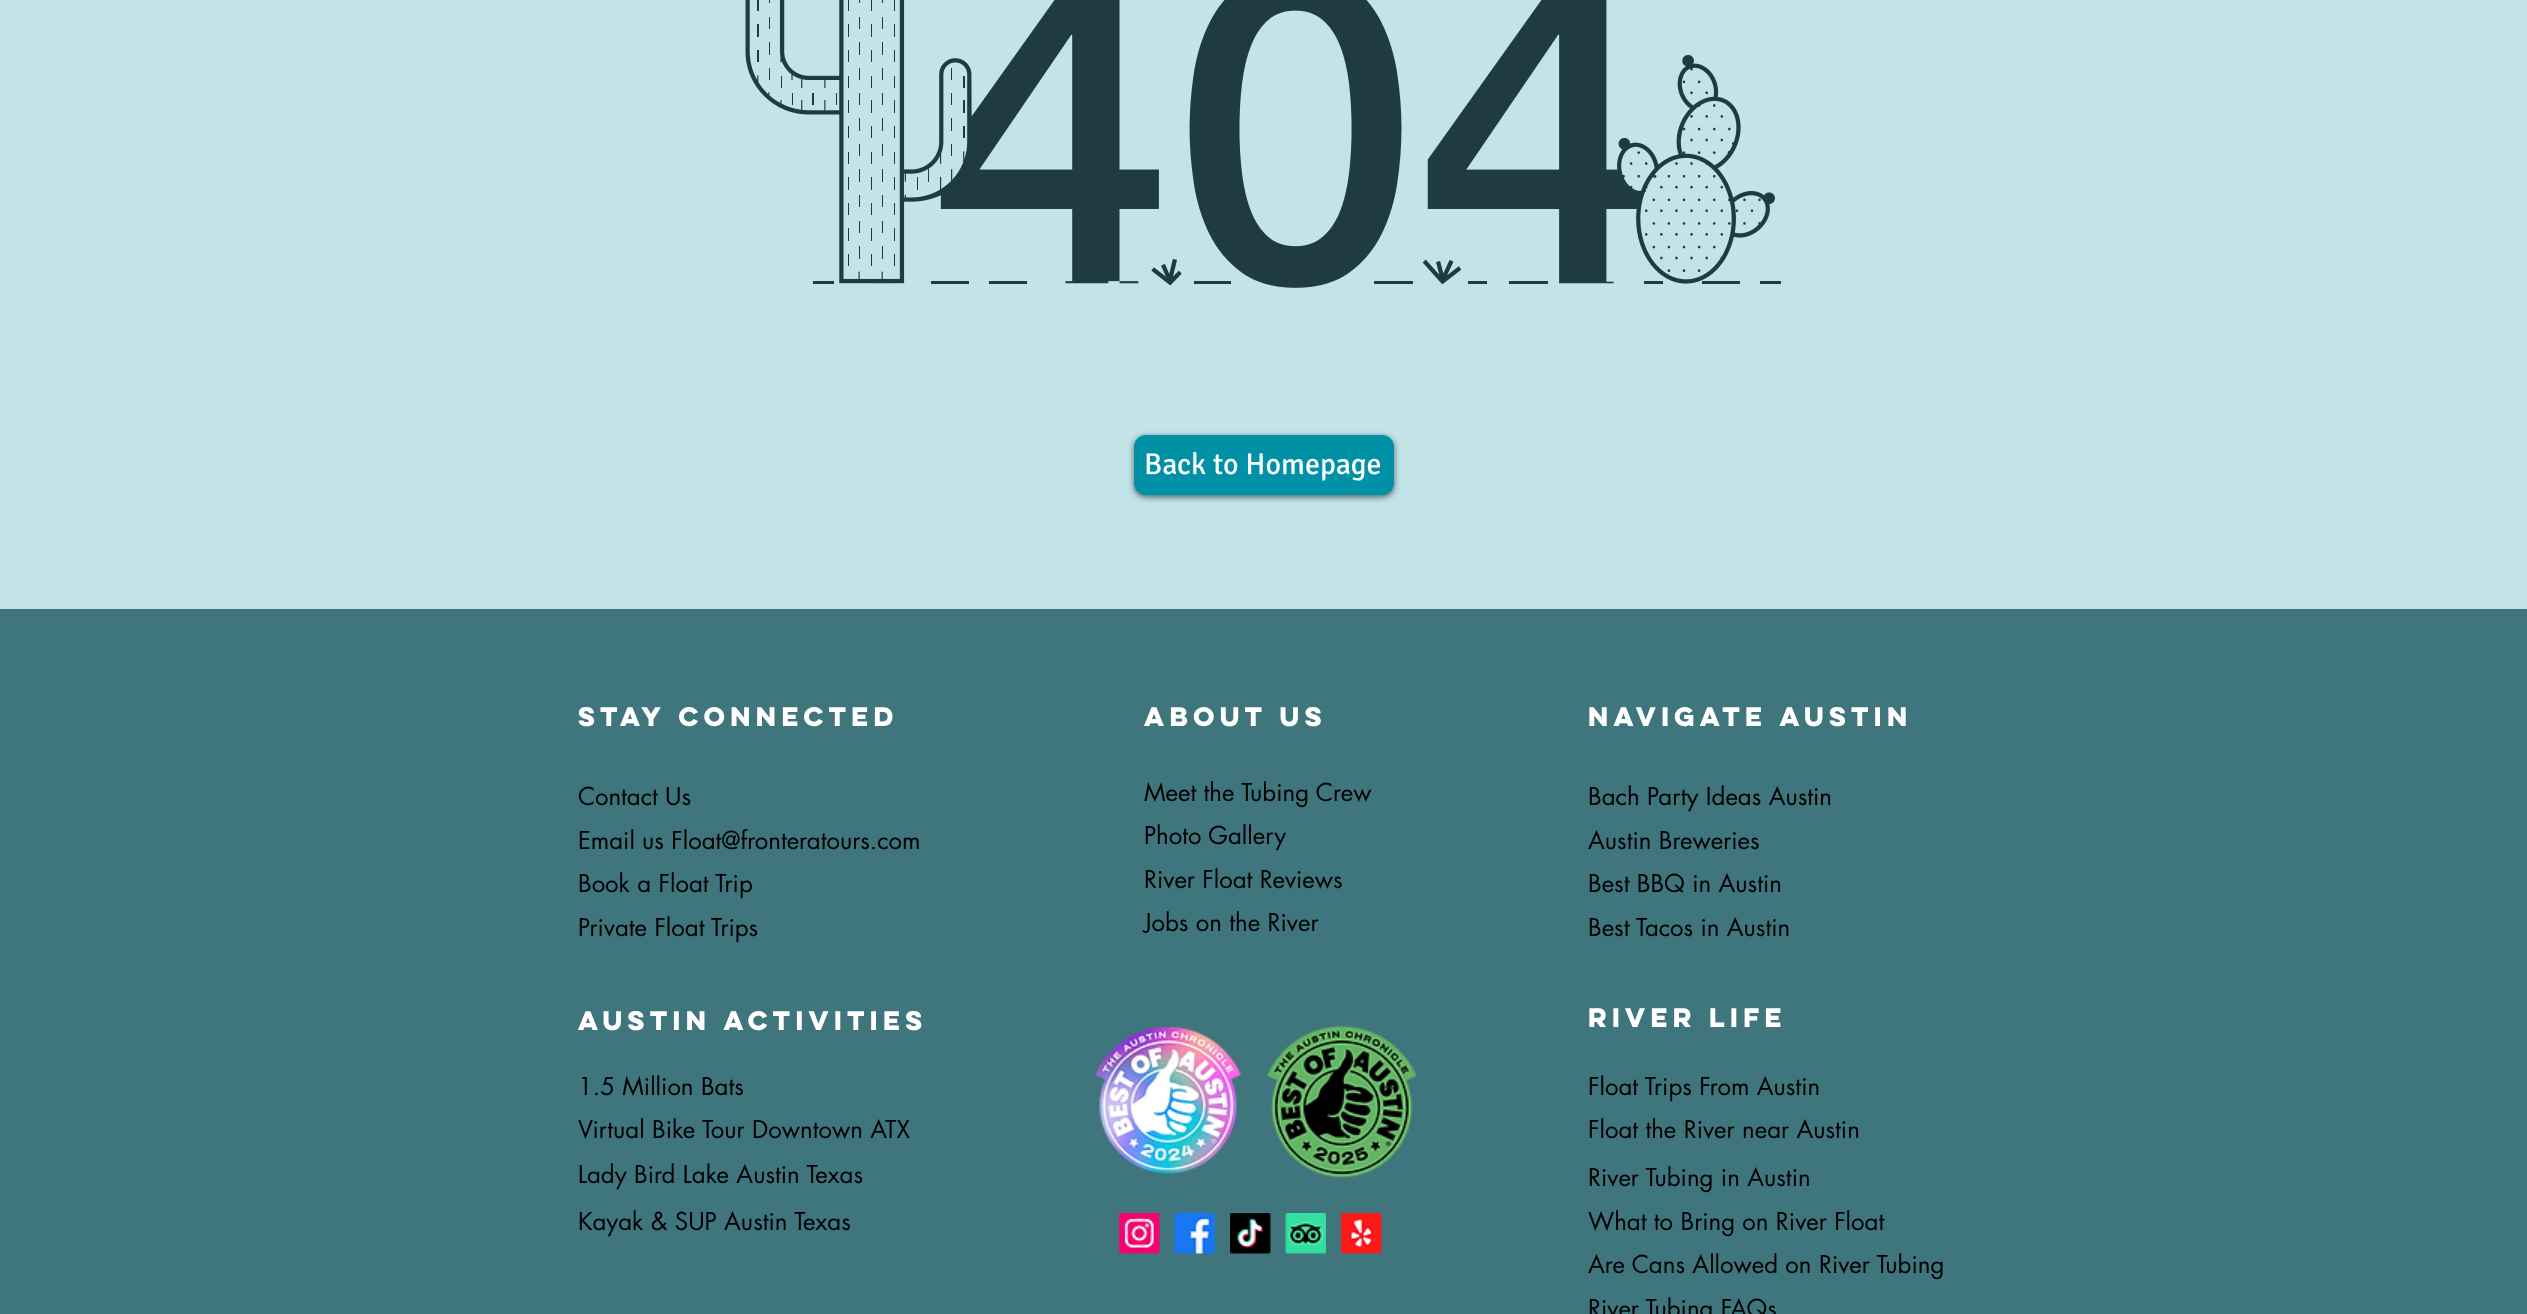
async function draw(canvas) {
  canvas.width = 2527;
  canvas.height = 1314;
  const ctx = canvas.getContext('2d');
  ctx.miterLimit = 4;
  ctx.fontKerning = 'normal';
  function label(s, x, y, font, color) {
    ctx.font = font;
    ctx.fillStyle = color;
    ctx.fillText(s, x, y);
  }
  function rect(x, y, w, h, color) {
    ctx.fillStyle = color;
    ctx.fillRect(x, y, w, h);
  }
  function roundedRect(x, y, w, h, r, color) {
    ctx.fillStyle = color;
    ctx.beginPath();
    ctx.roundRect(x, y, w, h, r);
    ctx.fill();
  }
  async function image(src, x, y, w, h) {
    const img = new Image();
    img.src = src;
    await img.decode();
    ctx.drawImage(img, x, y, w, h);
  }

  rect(0, 0, 2527, 1314, '#c2e4e9');
  await image('assets/img1.png', 745, 0, 1036, 288);
  ctx.fillStyle = '#00000099';
  ctx.filter = 'blur(3px)';
  ctx.beginPath();
  ctx.roundRect(1134, 437, 260, 60, 12);
  ctx.fill();
  ctx.filter = 'none';
  roundedRect(1134, 435, 260, 60, 12, '#0191a6');
  label('Back to Homepage', 1144, 474, '30px Signika', '#fff');
  rect(0, 609, 2527, 705, '#3f757d');
  label('STAY CONNECTED', 578, 726, 'bold 24px "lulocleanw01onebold"', '#fff');
  label('about us', 1144, 726, 'bold 24px "lulocleanw01onebold"', '#fff');
  label('navigate Austin', 1588, 726, 'bold 24px "lulocleanw01onebold"', '#fff');
  label('Contact Us', 578, 805, '24px futura', '#000');
  label('Meet the Tubing Crew', 1144, 801, '24px futura', '#000');
  label('Bach Party Ideas Austin', 1588, 805, '24px futura', '#000');
  label('Email us Float@fronteratours.com', 578, 849, '24px futura', '#000');
  label('Photo Gallery', 1144, 844, '24px futura', '#000');
  label('Austin Breweries', 1588, 849, '24px futura', '#000');
  label('Book a Float Trip', 578, 892, '24px futura', '#000');
  label('River Float Reviews', 1144, 888, '24px futura', '#000');
  label('Best BBQ in Austin', 1588, 892, '24px futura', '#000');
  label('Private Float Trips', 578, 936, '24px futura', '#000');
  label('Jobs on the River', 1144, 931, '24px futura', '#000');
  label('Best Tacos in Austin', 1588, 936, '24px futura', '#000');
  label('Austin ACTIVITIES', 578, 1030, 'bold 24px "lulocleanw01onebold"', '#fff');
  label('RIVER LIFE', 1588, 1027, 'bold 24px "lulocleanw01onebold"', '#fff');
  label('1.5 Million Bats', 578, 1095, '24px futura', '#000');
  await image('assets/img2.png', 1094, 1025, 147, 150);
  await image('assets/img3.png', 1267, 1025, 150, 153);
  label('Float Trips From Austin', 1588, 1095, '24px futura', '#000');
  label('Virtual Bike Tour Downtown ATX', 578, 1138, '24px futura', '#000');
  label('Float the River near Austin', 1588, 1138, '24px futura', '#000');
  label('Lady Bird Lake Austin Texas', 578, 1183, '24px futura', '#000');
  label('River Tubing in Austin', 1588, 1186, '24px futura', '#000');
  label('Kayak & SUP Austin Texas', 578, 1230, '24px futura', '#000');
  await image('assets/img4.png', 1119, 1213, 41, 41);
  await image('assets/img5.png', 1174, 1213, 41, 41);
  await image('assets/img6.png', 1230, 1213, 41, 41);
  await image('assets/img7.png', 1285, 1213, 41, 41);
  await image('assets/img8.png', 1341, 1213, 41, 41);
  label('What to Bring on River Float', 1588, 1230, '24px futura', '#000');
  label('Are Cans Allowed on River Tubing', 1588, 1273, '24px futura', '#000');
  label('River Tubing FAQs', 1588, 1317, '24px futura', '#000');
}

draw(document.querySelector('canvas'));
